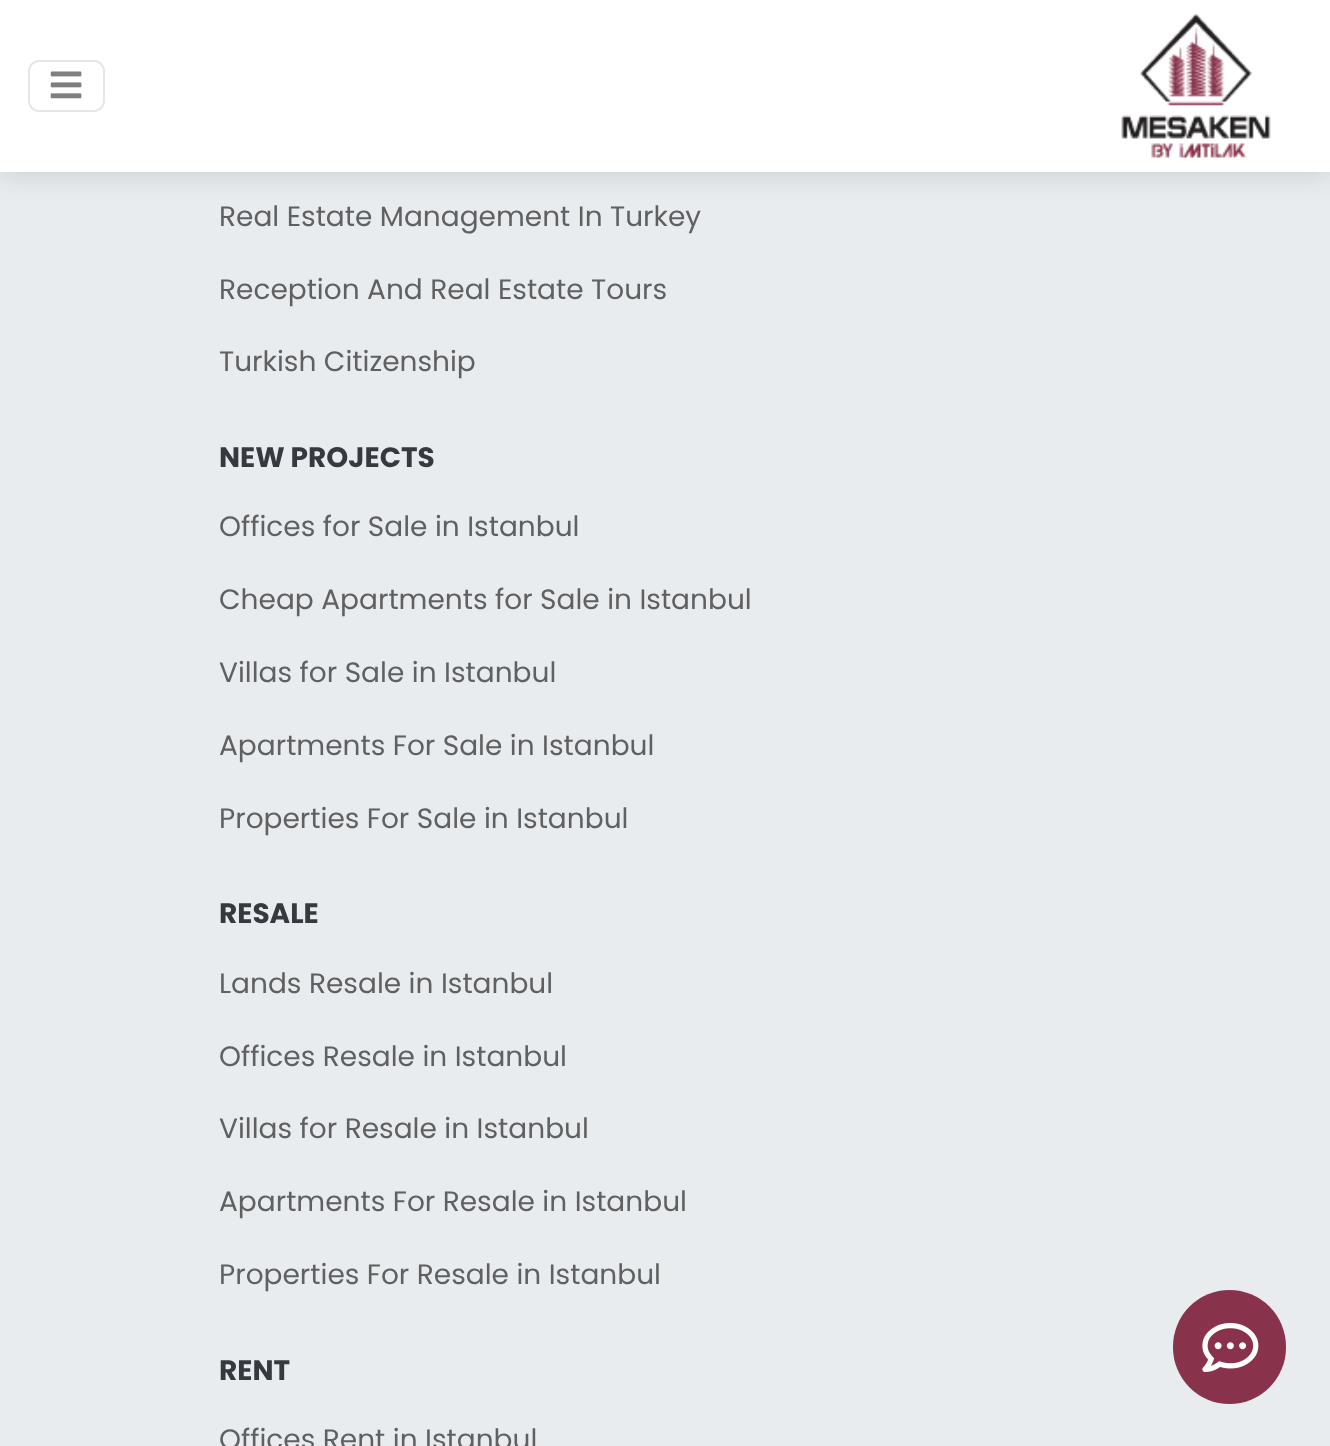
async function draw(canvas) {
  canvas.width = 1330;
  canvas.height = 1446;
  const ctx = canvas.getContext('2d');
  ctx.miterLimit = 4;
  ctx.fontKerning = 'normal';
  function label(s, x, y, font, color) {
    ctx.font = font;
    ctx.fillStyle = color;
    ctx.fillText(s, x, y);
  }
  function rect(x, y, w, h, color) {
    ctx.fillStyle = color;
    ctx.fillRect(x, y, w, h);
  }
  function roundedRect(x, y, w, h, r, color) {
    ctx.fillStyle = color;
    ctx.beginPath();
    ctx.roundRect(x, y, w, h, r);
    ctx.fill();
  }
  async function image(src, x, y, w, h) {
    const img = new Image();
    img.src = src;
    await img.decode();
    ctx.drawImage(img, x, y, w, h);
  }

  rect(0, 0, 1330, 1446, '#e9ecef');
  ctx.fillStyle = '#00000026';
  ctx.filter = 'blur(14px)';
  ctx.beginPath();
  ctx.rect(0, 0, 1330, 172);
  ctx.fill();
  ctx.filter = 'none';
  rect(0, 0, 1330, 172, '#fff');
  ctx.beginPath();
  ctx.roundRect(29, 61, 75, 50, 10);
  ctx.strokeStyle = '#e6e6e6';
  ctx.lineWidth = 2;
  ctx.stroke();
  await image('assets/img1.png', 50, 71, 32, 28);
  await image('assets/img2.png', 1121, 13, 150, 145);
  label('Real Estate Management In Turkey', 219, 226, '28px Poppins', '#5f6061');
  label('Reception And Real Estate Tours', 219, 299, '28px Poppins', '#5f6061');
  label('Turkish Citizenship', 219, 371, '28px Poppins', '#5f6061');
  label('NEW PROJECTS', 219, 467, 'bold 28px Poppins', '#343a40');
  label('Offices for Sale in Istanbul', 219, 536, '28px Poppins', '#5f6061');
  label('Cheap Apartments for Sale in Istanbul', 219, 609, '28px Poppins', '#5f6061');
  label('Villas for Sale in Istanbul', 219, 682, '28px Poppins', '#5f6061');
  label('Apartments For Sale in Istanbul', 219, 755, '28px Poppins', '#5f6061');
  label('Properties For Sale in Istanbul', 219, 828, '28px Poppins', '#5f6061');
  label('RESALE', 219, 923, 'bold 28px Poppins', '#343a40');
  label('Lands Resale in Istanbul', 219, 993, '28px Poppins', '#5f6061');
  label('Offices Resale in Istanbul', 219, 1066, '28px Poppins', '#5f6061');
  label('Villas for Resale in Istanbul', 219, 1138, '28px Poppins', '#5f6061');
  label('Apartments For Resale in Istanbul', 219, 1211, '28px Poppins', '#5f6061');
  label('Properties For Resale in Istanbul', 219, 1284, '28px Poppins', '#5f6061');
  label('RENT', 219, 1380, 'bold 28px Poppins', '#343a40');
  label('Offices Rent in Istanbul', 219, 1449, '28px Poppins', '#5f6061');
  roundedRect(1173, 1290, 113, 114, 56.5, '#88324b');
  await image('assets/img3.png', 1202, 1323, 57, 49);
}

draw(document.querySelector('canvas'));
